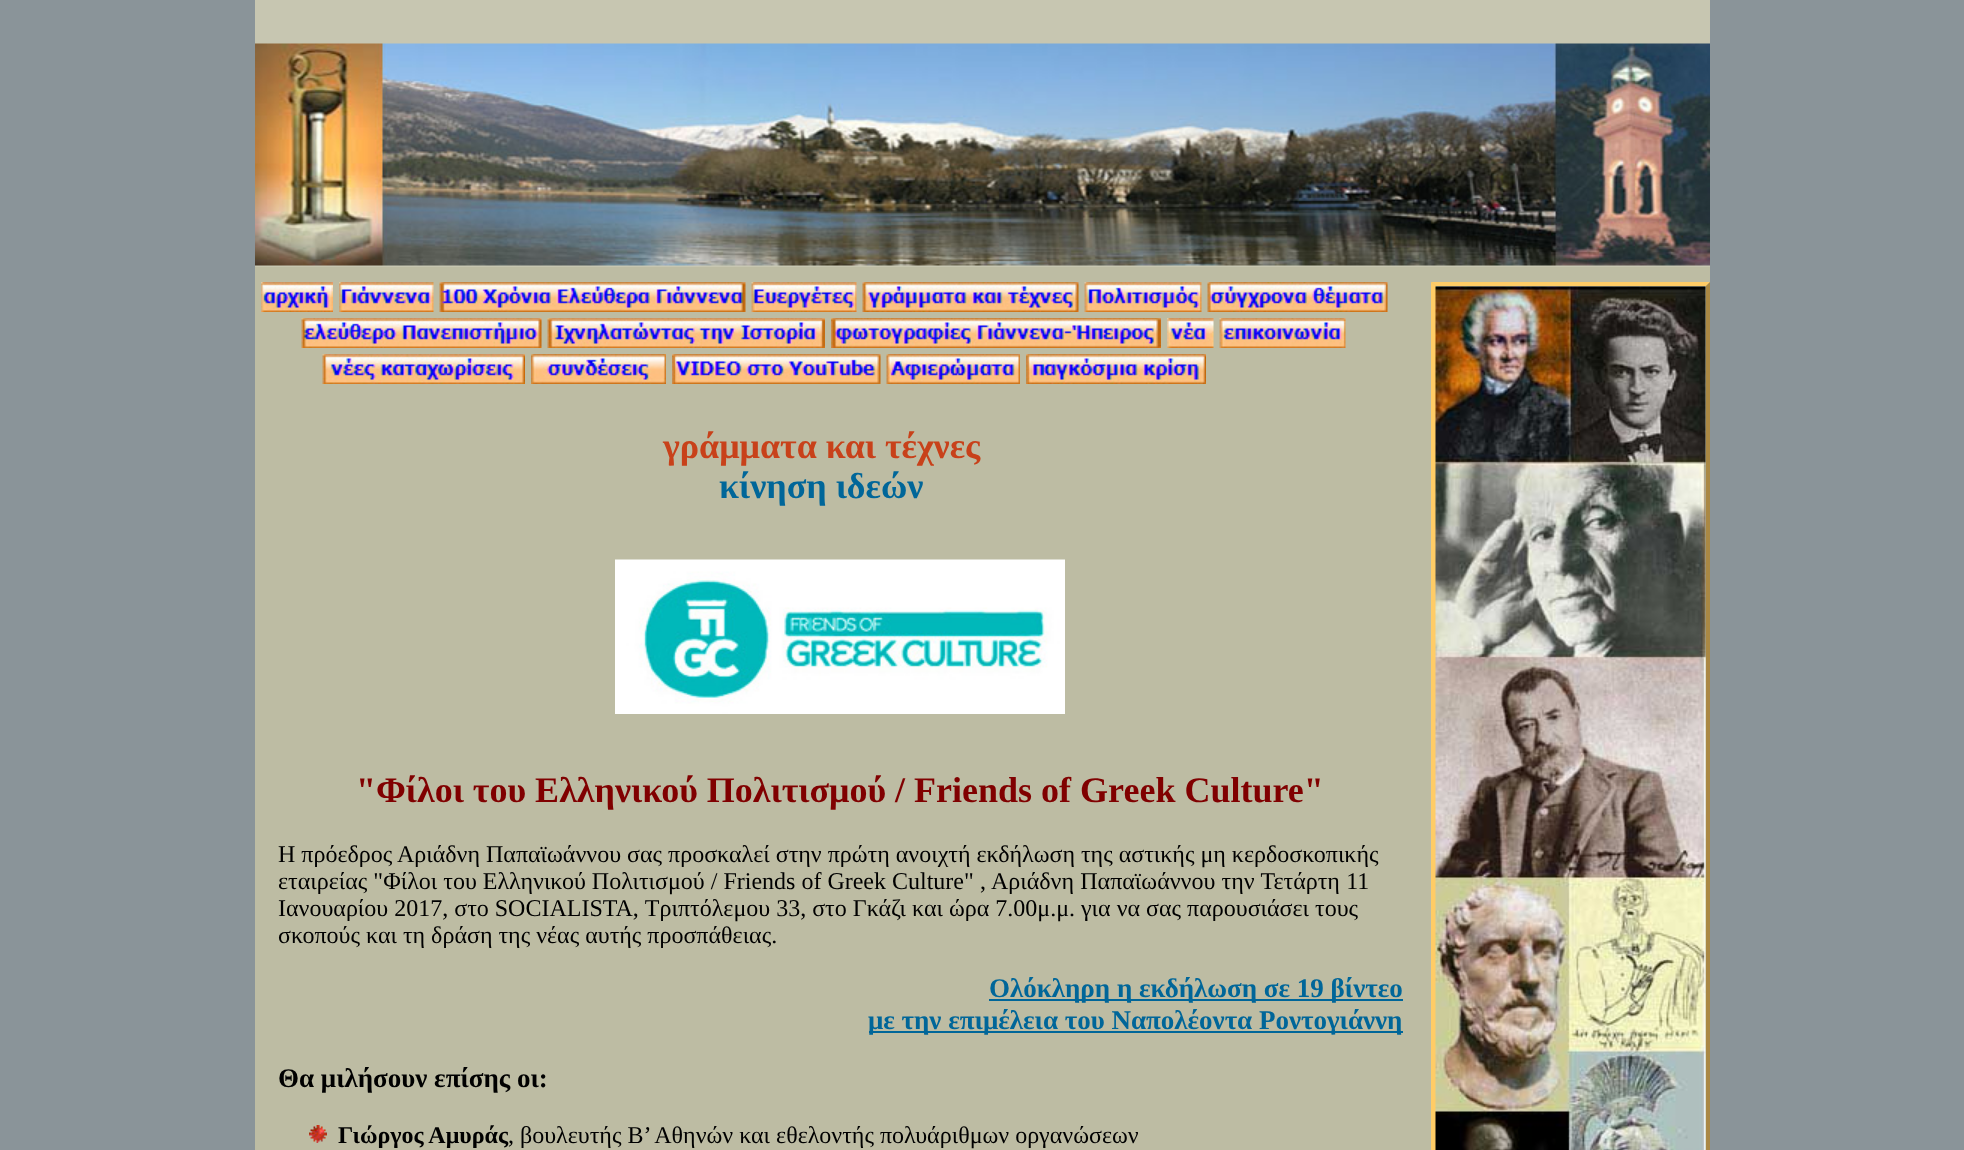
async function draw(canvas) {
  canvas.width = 1964;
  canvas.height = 1150;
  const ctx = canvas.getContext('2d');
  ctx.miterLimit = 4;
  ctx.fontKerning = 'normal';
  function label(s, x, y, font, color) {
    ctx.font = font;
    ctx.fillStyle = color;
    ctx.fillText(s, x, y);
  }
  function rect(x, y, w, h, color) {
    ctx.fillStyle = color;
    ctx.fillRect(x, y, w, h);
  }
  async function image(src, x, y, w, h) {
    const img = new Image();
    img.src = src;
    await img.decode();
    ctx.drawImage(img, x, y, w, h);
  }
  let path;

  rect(0, 0, 1964, 1150, '#8a9499');
  rect(255, 0, 1455, 267, '#c7c6b1');
  await image('assets/img1.png', 255, 43, 1455, 223);
  rect(255, 267, 1455, 883, '#bdbca3');
  await image('assets/img2.png', 261, 282, 72, 30);
  await image('assets/img3.png', 339, 282, 95, 30);
  await image('assets/img4.png', 439, 282, 307, 30);
  await image('assets/img5.png', 751, 282, 106, 30);
  await image('assets/img6.png', 862, 282, 217, 30);
  await image('assets/img7.png', 1084, 282, 118, 30);
  await image('assets/img8.png', 1207, 282, 181, 30);
  await image('assets/img9.png', 301, 318, 241, 30);
  await image('assets/img10.png', 547, 318, 278, 30);
  await image('assets/img11.png', 831, 318, 330, 30);
  await image('assets/img12.png', 1167, 318, 47, 30);
  await image('assets/img13.png', 1219, 318, 127, 30);
  await image('assets/img14.png', 322, 354, 203, 30);
  await image('assets/img15.png', 531, 354, 135, 30);
  await image('assets/img16.png', 672, 354, 209, 30);
  await image('assets/img17.png', 886, 354, 134, 30);
  await image('assets/img18.png', 1026, 354, 180, 30);
  label('γράμματα και τέχνες', 663, 458, 'bold 36px Liberation Serif', '#c8411a');
  label('κίνηση ιδεών', 719, 498, 'bold 36px Liberation Serif', '#069');
  ctx.fillStyle = '#fc6';
  path = new Path2D('M1431 282H1710L1706 286H1436Z');
  ctx.fill(path);
  ctx.fillStyle = '#a84';
  path = new Path2D('M1710 282V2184L1706 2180V286Z');
  ctx.fill(path);
  ctx.fillStyle = '#fc6';
  path = new Path2D('M1431 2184V282L1436 286V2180Z');
  ctx.fill(path);
  await image('assets/img19.png', 1435, 286, 271, 864);
  await image('assets/img20.png', 615, 559, 450, 155);
  label('"Φίλοι του Ελληνικού Πολιτισμού / Friends of Greek Culture"', 356, 802, 'bold 36px Liberation Serif', '#800000');
  label('Η πρόεδρος Αριάδνη Παπαϊωάννου σας προσκαλεί στην πρώτη ανοιχτή εκδήλωση της αστικής μη κερδοσκοπικής', 278, 862, '24px Liberation Serif', '#000');
  label('εταιρείας "Φίλοι του Ελληνικού Πολιτισμού / Friends of Greek Culture', 278, 889, '24px Liberation Serif', '#000');
  ctx.wordSpacing = '0.25px';
  label('" , Αριάδνη Παπαϊωάννου την Τετάρτη 11', 964, 889, '24px Liberation Serif', '#000');
  ctx.wordSpacing = '0px';
  label('Ιανουαρίου 2017, στο SOCIALISTA, Τριπτόλεμου 33, στο Γκάζι και ώρα 7.00μ.μ.', 278, 916, '24px Liberation Serif', '#000');
  label('για να σας παρουσιάσει τους', 1081, 916, '24px Liberation Serif', '#000');
  label('σκοπούς και τη δράση της νέας αυτής προσπάθειας.', 278, 943, '24px Liberation Serif', '#000');
  rect(989, 999, 414, 2, '#069');
  label('Ολόκληρη η εκδήλωση σε 19 βίντεο', 989, 997, 'bold 27px Liberation Serif', '#069');
  rect(869, 1031, 534, 2, '#069');
  label('με την επιμέλεια του Ναπολέοντα Ροντογιάννη', 868, 1029, 'bold 27px Liberation Serif', '#069');
  label('Θα μιλήσουν επίσης οι:', 278, 1087, 'bold 27px Liberation Serif', '#000');
  await image('assets/img21.png', 309, 1125, 18, 18);
  label('Γιώργος Αμυράς', 338, 1143, 'bold 24px Liberation Serif', '#000');
  label(', βουλευτής Β’ Αθηνών και εθελοντής πολυάριθμων οργανώσεων', 508, 1143, '24px Liberation Serif', '#000');
}

draw(document.querySelector('canvas'));
